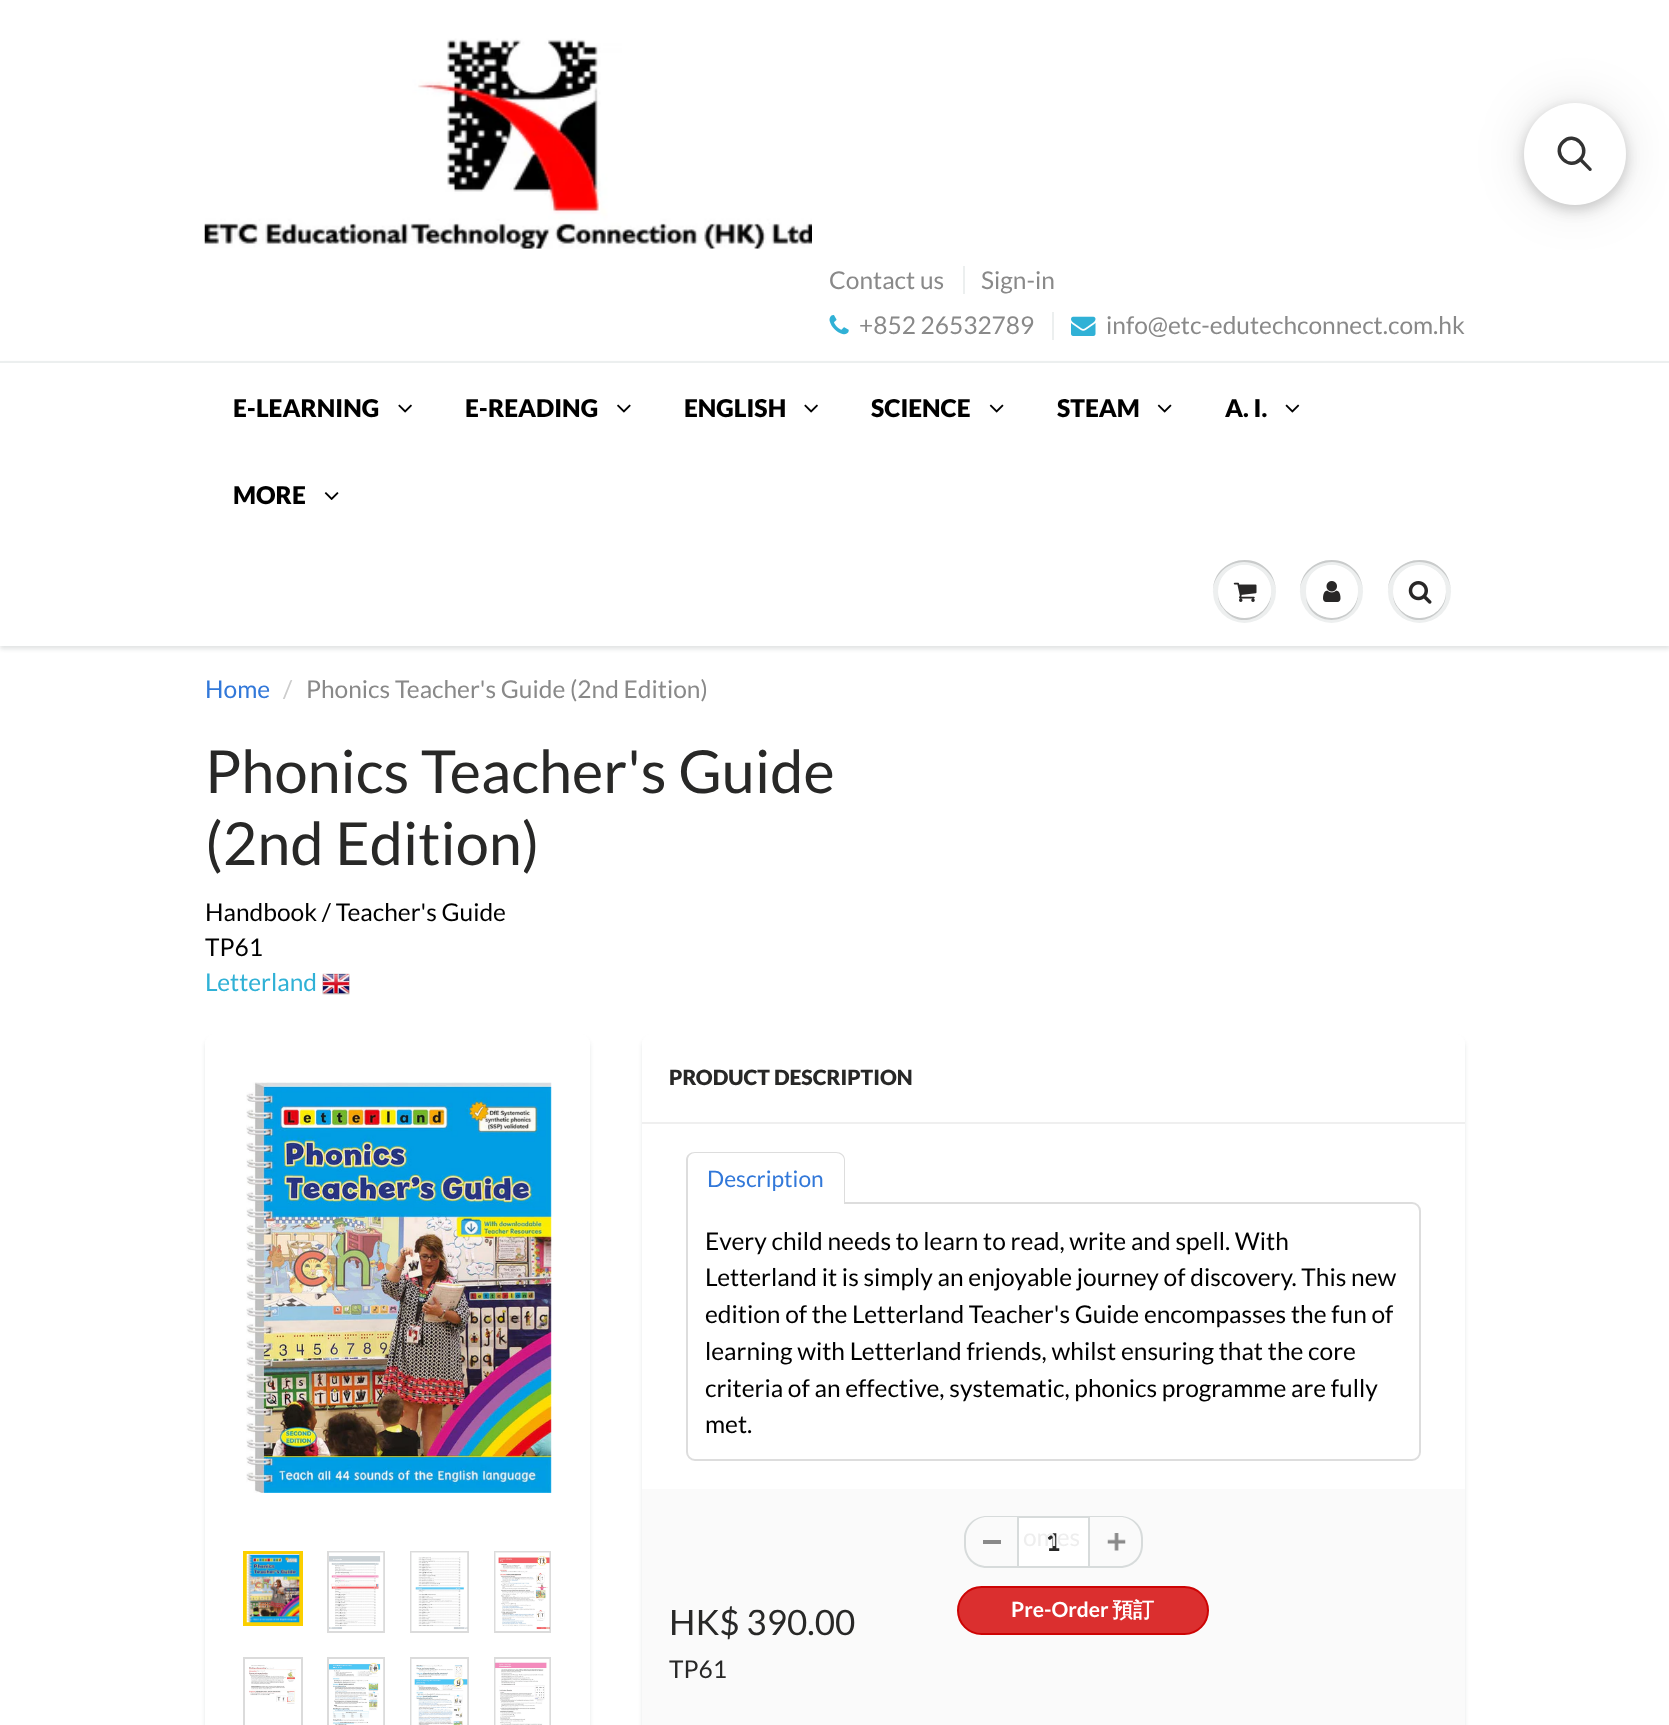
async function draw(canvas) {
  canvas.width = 1669;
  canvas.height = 1725;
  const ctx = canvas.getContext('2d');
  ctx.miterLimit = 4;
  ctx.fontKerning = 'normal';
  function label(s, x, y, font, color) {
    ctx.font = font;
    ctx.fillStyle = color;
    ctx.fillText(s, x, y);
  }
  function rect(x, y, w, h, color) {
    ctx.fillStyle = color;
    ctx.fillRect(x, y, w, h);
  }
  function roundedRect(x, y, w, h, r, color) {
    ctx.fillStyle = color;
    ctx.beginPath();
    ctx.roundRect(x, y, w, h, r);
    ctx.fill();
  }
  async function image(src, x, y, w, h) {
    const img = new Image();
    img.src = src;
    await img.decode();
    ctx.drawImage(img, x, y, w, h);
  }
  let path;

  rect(0, 0, 1669, 1725, '#fff');
  ctx.fillStyle = '#0000000d';
  ctx.filter = 'blur(7px)';
  ctx.beginPath();
  ctx.roundRect(1524, 110, 102, 102, 51);
  ctx.fill();
  ctx.filter = 'none';
  ctx.fillStyle = '#00000026';
  ctx.filter = 'blur(7px)';
  ctx.beginPath();
  ctx.roundRect(1524, 107, 102, 101, 50.5);
  ctx.fill();
  ctx.filter = 'none';
  ctx.fillStyle = '#0000001a';
  ctx.filter = 'blur(26px)';
  ctx.beginPath();
  ctx.roundRect(1524, 103, 102, 102, 51);
  ctx.fill();
  ctx.filter = 'none';
  ctx.fillStyle = '#fff';
  ctx.beginPath();
  ctx.arc(1575, 154, 51, 0, 2 * Math.PI);
  ctx.fill();
  path = new Path2D('M1563 142C1574 130.5 1591.5 148 1580 159.5C1569 171 1551.5 153.5 1563 142Z');
  ctx.strokeStyle = '#333';
  ctx.lineWidth = 3.5;
  ctx.stroke(path);
  ctx.fillStyle = '#333';
  path = new Path2D('M1579 160.5L1581.5 158L1591.5 168.5C1592.5 170 1590.5 172 1589 170.5Z');
  ctx.fill(path);
  await image('assets/img1.png', 204, 38, 608, 211);
  label('Contact us', 829, 289, '24.5px Lato', '#898989');
  rect(963, 266, 2, 28, '#ecefef');
  label('Sign-in', 981, 289, '24.5px Lato', '#898989');
  await image('assets/img2.png', 829, 315, 20, 20);
  label('+852 26532789', 859, 334, '24.5px Lato', '#898989');
  rect(1052, 312, 2, 28, '#ecefef');
  await image('assets/img3.png', 1071, 316, 25, 20);
  label('info@etc-edutechconnect.com.hk', 1106, 334, '24.5px Lato', '#898989');
  ctx.fillStyle = '#edefef';
  ctx.beginPath();
  ctx.arc(1244.5, 591.5, 31.5, 0, 2 * Math.PI);
  ctx.fill();
  ctx.fillStyle = '#c9cbcb';
  path = new Path2D('M1244 562C1262 562 1276 576 1276 592C1276 586 1274 579 1271 574C1253 548 1212 561 1213 592C1213 576 1227 562 1244 562Z');
  ctx.fill(path);
  ctx.fillStyle = '#edefef';
  ctx.beginPath();
  ctx.arc(1331.5, 591.5, 31.5, 0, 2 * Math.PI);
  ctx.fill();
  ctx.fillStyle = '#c9cbcb';
  path = new Path2D('M1332 562C1349 562 1363 576 1363 592C1363 586 1361 579 1358 574C1340 548 1299 561 1300 592C1300 576 1314 562 1332 562Z');
  ctx.fill(path);
  ctx.fillStyle = '#edefef';
  ctx.beginPath();
  ctx.arc(1419.5, 591.5, 31.5, 0, 2 * Math.PI);
  ctx.fill();
  ctx.fillStyle = '#c9cbcb';
  path = new Path2D('M1419 562C1437 562 1451 576 1451 592C1451 586 1449 579 1446 574C1428 548 1387 561 1388 592C1388 576 1402 562 1419 562Z');
  ctx.fill(path);
  ctx.save();
  path = new Path2D('M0 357H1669V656H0ZM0 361H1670V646H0Z');
  ctx.clip(path, 'evenodd');
  ctx.fillStyle = '#0b191c1f';
  ctx.filter = 'blur(2px)';
  ctx.beginPath();
  ctx.rect(0, 364, 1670, 285);
  ctx.fill();
  ctx.filter = 'none';
  ctx.restore();
  rect(0, 361, 1669, 2, '#ecefef');
  label('E-LEARNING', 233, 417, '900 24.5px Lato', '#000');
  await image('assets/img4.png', 398, 404, 14, 9);
  label('E-READING', 465, 417, '900 24.5px Lato', '#000');
  await image('assets/img5.png', 617, 404, 14, 9);
  label('ENGLISH', 684, 417, '900 24.5px Lato', '#000');
  await image('assets/img4.png', 804, 404, 14, 9);
  label('SCIENCE', 871, 417, '900 24.5px Lato', '#000');
  await image('assets/img6.png', 989, 404, 15, 9);
  label('STEAM', 1057, 417, '900 24.5px Lato', '#000');
  await image('assets/img6.png', 1157, 404, 15, 9);
  label('A. I.', 1225, 417, '900 24.5px Lato', '#000');
  await image('assets/img7.png', 1285, 404, 15, 9);
  label('MORE', 233, 504, '900 24.5px Lato', '#000');
  await image('assets/img8.png', 324, 492, 15, 8);
  ctx.fillStyle = '#c9cbcb';
  path = new Path2D('M1218 592C1218 598 1219 604 1223 608C1240 634 1278 614 1270 586C1275 611 1245 628 1226 610C1221 606 1218 599 1218 592Z');
  ctx.fill(path);
  ctx.fillStyle = '#fff';
  ctx.beginPath();
  ctx.arc(1244.5, 591.5, 26.5, 0, 2 * Math.PI);
  ctx.fill();
  path = new Path2D('M1244 567C1264 567 1275 587 1268 604C1282 578 1248 551 1226 573C1221 578 1218 585 1218 592C1218 579 1230 567 1244 567Z');
  ctx.fill(path);
  await image('assets/img9.png', 1233, 582, 24, 20);
  ctx.fillStyle = '#c9cbcb';
  path = new Path2D('M1306 598C1311 630 1359 626 1358 592C1357 622 1314 627 1306 598Z');
  ctx.fill(path);
  roundedRect(1306, 565, 52, 53, 26, '#fff');
  path = new Path2D('M1332 567C1346 567 1358 579 1358 593C1359 556 1305 556 1306 592C1306 579 1317 567 1332 567Z');
  ctx.fill(path);
  await image('assets/img10.png', 1323, 581, 18, 21);
  ctx.fillStyle = '#c9cbcb';
  path = new Path2D('M1393 592C1393 598 1394 604 1398 608C1415 634 1453 614 1445 586C1450 611 1420 628 1401 610C1396 606 1393 599 1393 592Z');
  ctx.fill(path);
  ctx.fillStyle = '#fff';
  ctx.beginPath();
  ctx.arc(1419.5, 591.5, 26.5, 0, 2 * Math.PI);
  ctx.fill();
  path = new Path2D('M1419 567C1434 567 1446 579 1446 592C1447 566 1412 555 1398 577C1394 581 1393 587 1393 592C1393 579 1405 567 1419 567Z');
  ctx.fill(path);
  await image('assets/img11.png', 1408, 581, 24, 23);
  label('Home', 205, 698, '24.5px Lato', '#3278d9');
  label('/', 283, 698, '24.5px Lato', '#ccc');
  label('Phonics Teacher\'s Guide (2nd Edition)', 306, 698, '24.5px Lato', '#898989');
  label('Phonics Teacher\'s Guide', 205, 793, '59.5px Lato', '#282827');
  label('(2nd Edition)', 205, 865, '59.5px Lato', '#282827');
  label('Handbook / Teacher\'s Guide', 205, 921, '24.5px Lato', '#000');
  label('TP61', 205, 956, '24.5px Lato', '#000');
  label('Letterland', 205, 991, '24.5px Lato', '#30b1d6');
  await image('assets/img12.png', 322, 973, 28, 22);
  ctx.fillStyle = '#0b191c1a';
  ctx.filter = 'blur(2px)';
  ctx.beginPath();
  ctx.roundRect(205, 1038, 385, 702, 9);
  ctx.fill();
  ctx.filter = 'none';
  roundedRect(205, 1034, 385, 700, 9, '#fff');
  await image('assets/img13.png', 246, 1082, 306, 411);
  ctx.strokeStyle = '#fbcf00';
  ctx.lineWidth = 4;
  ctx.strokeRect(245, 1553, 56, 71);
  await image('assets/img14.png', 246, 1554, 54, 69);
  ctx.strokeStyle = '#dbdbdb';
  ctx.lineWidth = 2;
  ctx.strokeRect(328, 1552, 56, 80);
  await image('assets/img15.png', 329, 1552, 55, 79);
  ctx.strokeRect(411, 1552, 57, 80);
  await image('assets/img16.png', 411, 1552, 57, 79);
  ctx.strokeRect(495, 1552, 55, 80);
  await image('assets/img17.png', 495, 1552, 55, 79);
  ctx.strokeRect(244, 1658, 58, 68);
  await image('assets/img18.png', 249, 1665, 47, 39);
  ctx.strokeRect(328, 1658, 56, 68);
  await image('assets/img19.png', 329, 1659, 55, 66);
  ctx.strokeRect(411, 1658, 57, 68);
  await image('assets/img20.png', 411, 1659, 57, 66);
  ctx.strokeRect(495, 1658, 55, 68);
  await image('assets/img21.png', 495, 1659, 55, 66);
  ctx.fillStyle = '#0b191c1a';
  ctx.filter = 'blur(2px)';
  ctx.beginPath();
  ctx.roundRect(642, 1038, 823, 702, 9);
  ctx.fill();
  ctx.filter = 'none';
  roundedRect(642, 1034, 823, 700, 9, '#fff');
  rect(642, 1122, 823, 2, '#efefef');
  label('PRODUCT DESCRIPTION', 669, 1085, '900 21px Lato', '#282827');
  ctx.beginPath();
  ctx.roundRect(687, 1203, 733, 257, [0, 8, 8, 8]);
  ctx.strokeStyle = '#ddd';
  ctx.stroke();
  ctx.fillStyle = '#fff';
  ctx.beginPath();
  ctx.roundRect(686, 1152, 159, 52, [9, 9, 0, 0]);
  ctx.fill();
  ctx.fillStyle = '#ddd';
  path = new Path2D('M695 1152H836C841 1152 845 1155 845 1160V1204H686V1160C686 1155 690 1152 695 1152ZM695 1153H836C840 1153 844 1156 844 1160V1204H688V1160C688 1156 691 1153 695 1153Z');
  ctx.fill(path, 'evenodd');
  label('Description', 707, 1187, '22.75px Lato', '#3278d9');
  label('Every child needs to learn to read, write and spell. With', 705, 1250, '24.5px Lato', '#000');
  label('Letterland it is simply an enjoyable journey of discovery. This new', 705, 1286, '24.5px Lato', '#000');
  label('edition of the Letterland Teacher\'s Guide encompasses the fun of', 705, 1323, '24.5px Lato', '#000');
  label('learning with Letterland friends, whilst ensuring that the core', 705, 1360, '24.5px Lato', '#000');
  label('criteria of an effective, systematic, phonics programme are fully', 705, 1397, '24.5px Lato', '#000');
  label('met.', 705, 1433, '24.5px Lato', '#000');
  rect(642, 1489, 823, 236, '#fafafa');
  ctx.fillStyle = '#fff';
  ctx.beginPath();
  ctx.rect(1018, 1517, 71, 50);
  ctx.fill();
  ctx.strokeStyle = '#d7dbdb';
  ctx.stroke();
  label('1', 1046, 1551, '900 24.5px Lato', '#282827');
  label('omes', 1023, 1546, '24.5px Lato', '#eee');
  ctx.fillStyle = '#db2f2f';
  ctx.beginPath();
  ctx.roundRect(958, 1587, 250, 47, 23.5);
  ctx.fill();
  ctx.strokeStyle = '#cd0404';
  ctx.stroke();
  label('Pre-Order', 1011, 1617, 'bold 21px Lato', '#fff');
  label('預訂', 1112, 1617, 'bold 21px WenQuanYi Zen Hei', '#fff');
  rect(983, 1540, 18, 4, '#898989');
  ctx.fillStyle = '#d7dbdb';
  path = new Path2D('M987 1516H1017V1568H987C974 1568 964 1558 964 1545V1538C964 1526 974 1516 987 1516ZM987 1517H1017V1566H987C975 1566 966 1557 966 1545V1538C966 1527 975 1517 987 1517Z');
  ctx.fill(path, 'evenodd');
  await image('assets/img22.png', 1107, 1533, 19, 18);
  path = new Path2D('M1090 1516H1120C1133 1516 1143 1526 1143 1538V1545C1143 1558 1133 1568 1120 1568H1090ZM1090 1517H1120C1132 1517 1141 1527 1141 1538V1545C1141 1557 1132 1566 1120 1566H1090Z');
  ctx.fill(path, 'evenodd');
  label('HK$ 390.00', 669, 1635, '35px Lato', '#282827');
  label('TP61', 669, 1678, '24.5px Lato', '#282827');
}

draw(document.querySelector('canvas'));
